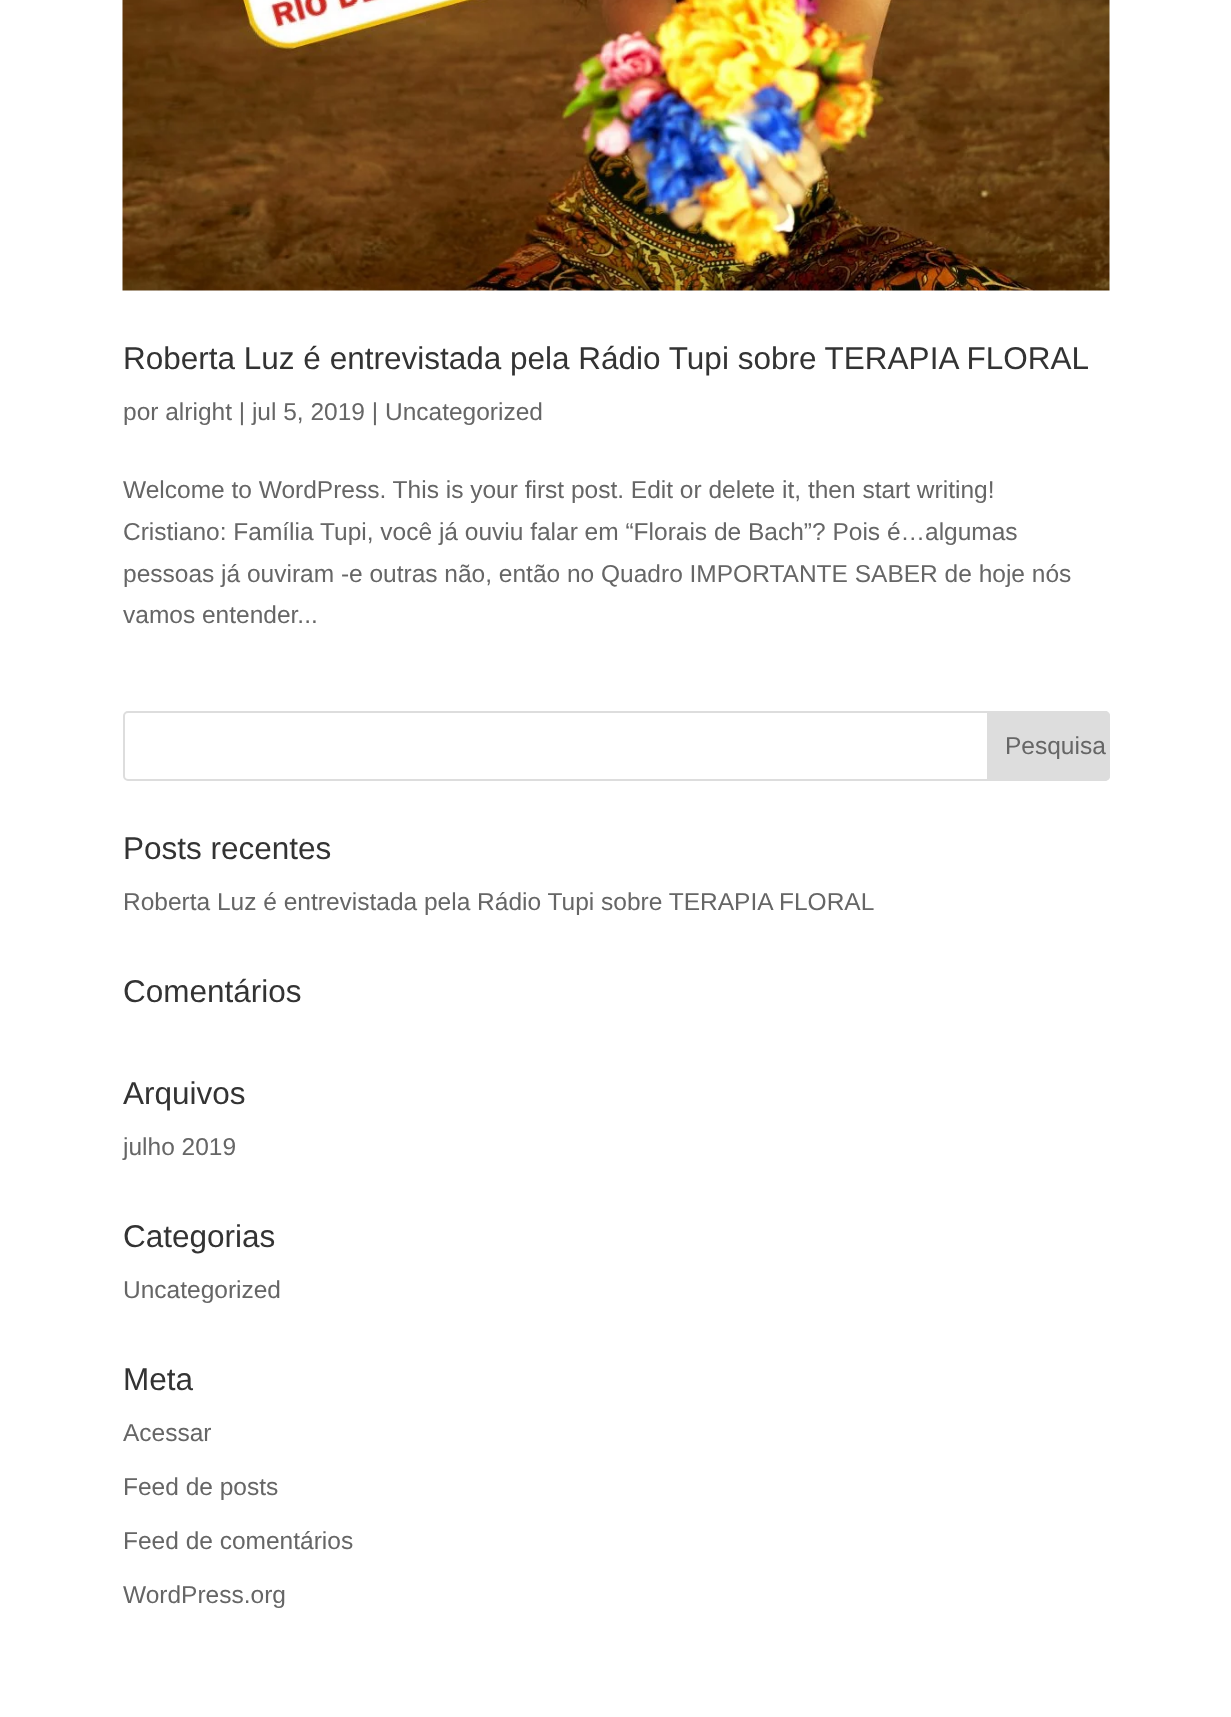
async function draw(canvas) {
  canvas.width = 1231;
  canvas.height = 1717;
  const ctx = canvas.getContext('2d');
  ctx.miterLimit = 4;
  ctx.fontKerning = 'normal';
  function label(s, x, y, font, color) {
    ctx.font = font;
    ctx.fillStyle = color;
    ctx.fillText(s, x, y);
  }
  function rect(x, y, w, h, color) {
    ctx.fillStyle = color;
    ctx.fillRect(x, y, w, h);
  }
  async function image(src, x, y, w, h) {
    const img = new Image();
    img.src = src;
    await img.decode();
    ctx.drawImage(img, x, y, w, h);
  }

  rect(0, 0, 1231, 1717, '#fff');
  await image('assets/img1.png', 122, 0, 988, 291);
  label('Roberta Luz é entrevistada pela Rádio Tupi sobre TERAPIA FLORAL', 123, 369, '31.5px Liberation Sans', '#333');
  label('por alright | jul 5, 2019 | Uncategorized', 123, 420, '24.5px Liberation Sans', '#666');
  label('Welcome to WordPress. This is your first post. Edit or delete it, then start writing!', 123, 498, '24.5px Liberation Sans', '#666');
  label('Cristiano: Família Tupi, você já ouviu falar em “Florais de Bach”? Pois é…algumas', 123, 540, '24.5px Liberation Sans', '#666');
  label('pessoas já ouviram -e outras não, então no Quadro IMPORTANTE SABER de hoje nós', 123, 582, '24.5px Liberation Sans', '#666');
  label('vamos entender...', 123, 623, '24.5px Liberation Sans', '#666');
  ctx.beginPath();
  ctx.roundRect(124, 712, 985, 68, 4);
  ctx.strokeStyle = '#ddd';
  ctx.lineWidth = 2;
  ctx.stroke();
  ctx.fillStyle = '#ddd';
  ctx.beginPath();
  ctx.roundRect(988, 712, 121, 68, [0, 4, 4, 0]);
  ctx.fill();
  ctx.stroke();
  label('Pesquisa', 1005, 754, '24.5px Liberation Sans', '#666');
  label('Posts recentes', 123, 859, '31.5px Liberation Sans', '#333');
  label('Roberta Luz é entrevistada pela Rádio Tupi sobre TERAPIA FLORAL', 123, 910, '24.5px Liberation Sans', '#666');
  label('Comentários', 123, 1002, '31.5px Liberation Sans', '#333');
  label('Arquivos', 123, 1104, '31.5px Liberation Sans', '#333');
  label('julho 2019', 123, 1155, '24.5px Liberation Sans', '#666');
  label('Categorias', 123, 1247, '31.5px Liberation Sans', '#333');
  label('Uncategorized', 123, 1298, '24.5px Liberation Sans', '#666');
  label('Meta', 123, 1390, '31.5px Liberation Sans', '#333');
  label('Acessar', 123, 1441, '24.5px Liberation Sans', '#666');
  label('Feed de posts', 123, 1495, '24.5px Liberation Sans', '#666');
  label('Feed de comentários', 123, 1549, '24.5px Liberation Sans', '#666');
  label('WordPress.org', 123, 1603, '24.5px Liberation Sans', '#666');
}

draw(document.querySelector('canvas'));
